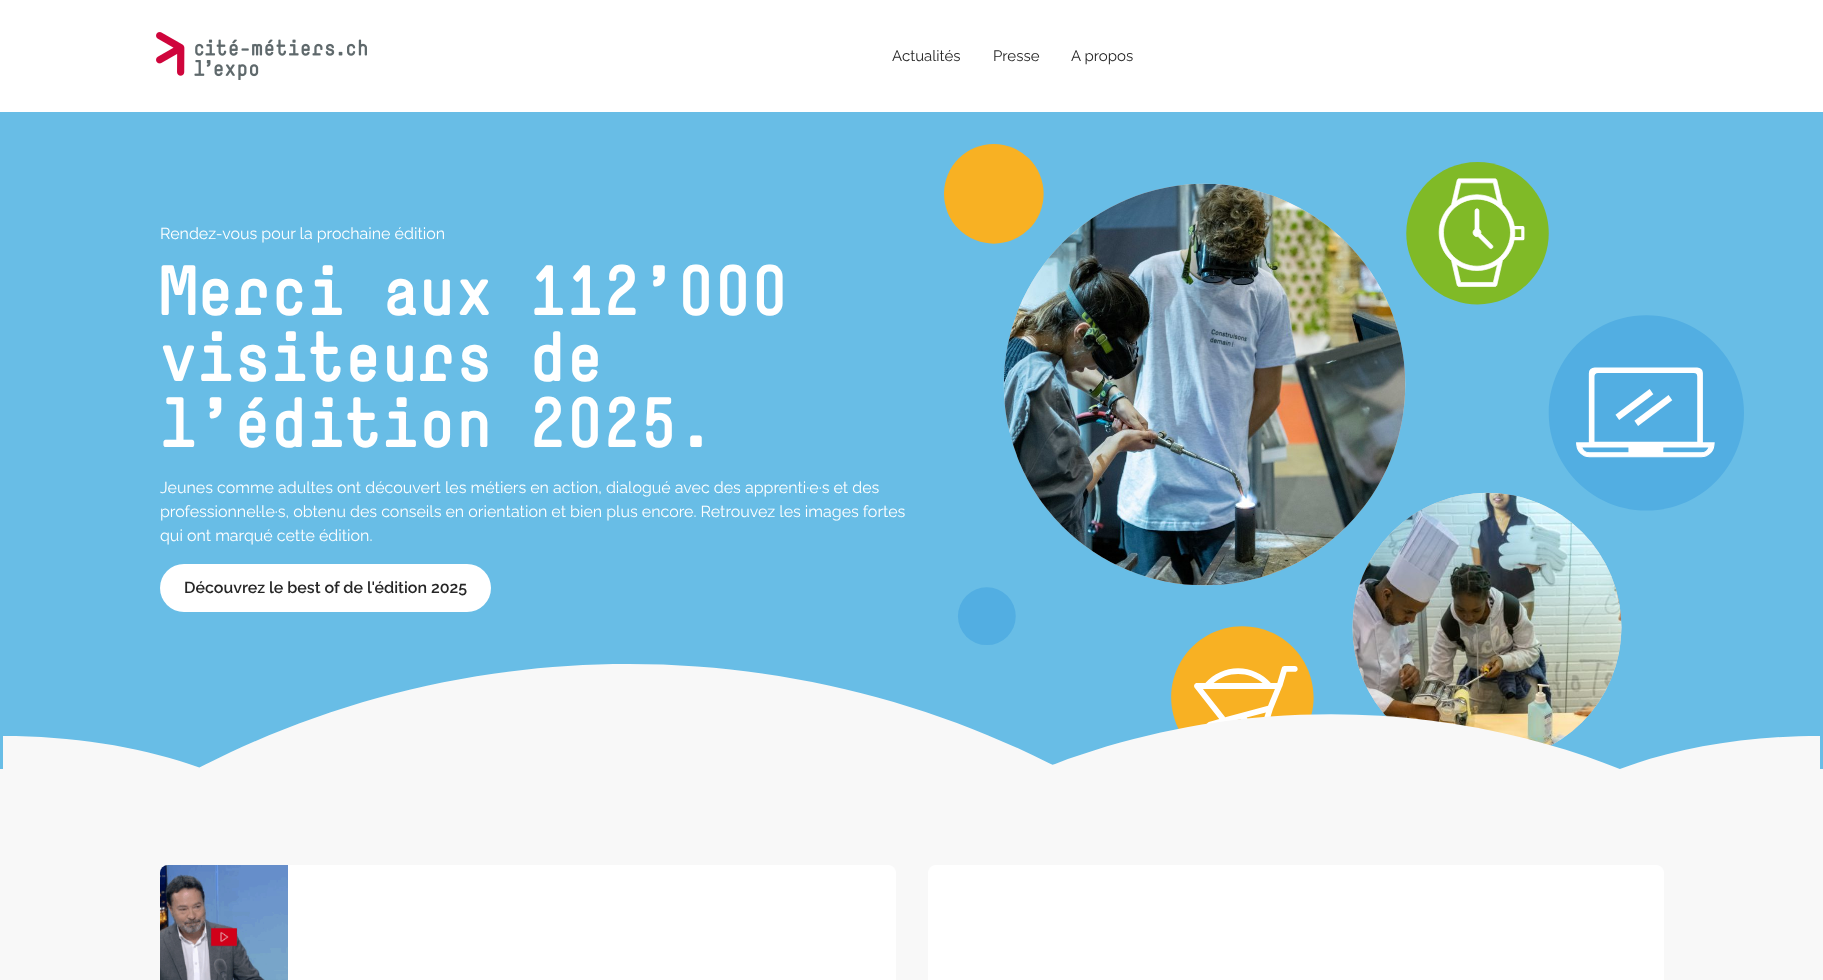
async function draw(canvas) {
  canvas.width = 1823;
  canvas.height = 980;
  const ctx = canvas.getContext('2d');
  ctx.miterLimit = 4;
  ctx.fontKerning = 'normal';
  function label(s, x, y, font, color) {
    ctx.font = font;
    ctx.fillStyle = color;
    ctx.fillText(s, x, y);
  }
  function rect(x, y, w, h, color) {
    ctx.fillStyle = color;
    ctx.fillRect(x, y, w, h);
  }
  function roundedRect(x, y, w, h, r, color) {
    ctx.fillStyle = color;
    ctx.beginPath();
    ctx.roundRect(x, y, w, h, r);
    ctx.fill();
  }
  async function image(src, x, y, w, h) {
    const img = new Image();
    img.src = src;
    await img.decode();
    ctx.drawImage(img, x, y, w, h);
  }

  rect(0, 0, 1823, 980, '#f8f8f8');
  rect(0, 0, 1823, 112, '#fff');
  await image('assets/img1.png', 156, 32, 211, 48);
  label('Actualités', 892, 61, '15px Raleway', '#262626');
  label('Presse', 993, 61, '15px Raleway', '#262626');
  label('A propos', 1071, 61, '15px Raleway', '#262626');
  rect(0, 112, 1823, 657, '#68bde6');
  label('Rendez-vous pour la prochaine édition', 160, 239, '16px Raleway', '#fff');
  label('Merci aux 112\'000', 160, 315, 'bold 70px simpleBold', '#fff');
  label('visiteurs de', 160, 381, 'bold 70px simpleBold', '#fff');
  label('l\'édition 2025.', 160, 447, 'bold 70px simpleBold', '#fff');
  label('Jeunes comme adultes ont découvert les métiers en action, dialogué avec des apprenti·e·s et des', 160, 493, '16px Raleway', '#fff');
  label('professionnel·le·s, obtenu des conseils en orientation et bien plus encore. Retrouvez les images fortes', 160, 517, '16px Raleway', '#fff');
  label('qui ont marqué cette édition.', 160, 541, '16px Raleway', '#fff');
  roundedRect(160, 564, 331, 48, 24, '#fff');
  label('Découvrez le best of de l\'édition 2025', 184, 593, '600 16px Raleway', '#262626');
  await image('assets/img2.png', 944, 144, 800, 602);
  await image('assets/img3.png', 3, 664, 1817, 105);
  roundedRect(160, 865, 736, 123, 8, '#fff');
  await image('assets/img4.png', 160, 865, 128, 115);
  roundedRect(928, 865, 736, 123, 8, '#fff');
}

draw(document.querySelector('canvas'));
